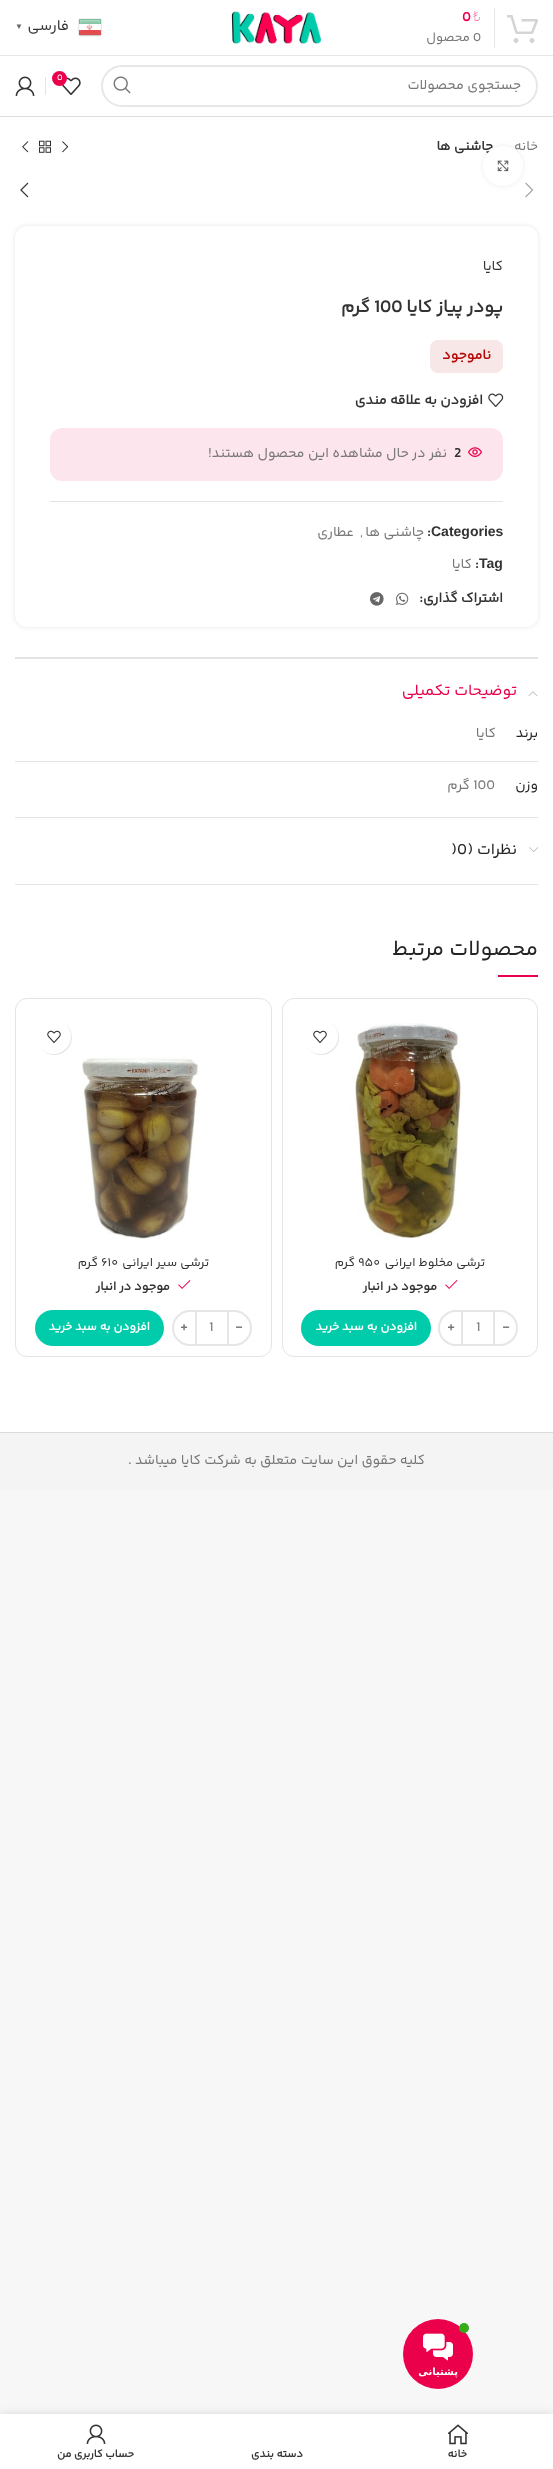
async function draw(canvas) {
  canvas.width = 553;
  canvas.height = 2469;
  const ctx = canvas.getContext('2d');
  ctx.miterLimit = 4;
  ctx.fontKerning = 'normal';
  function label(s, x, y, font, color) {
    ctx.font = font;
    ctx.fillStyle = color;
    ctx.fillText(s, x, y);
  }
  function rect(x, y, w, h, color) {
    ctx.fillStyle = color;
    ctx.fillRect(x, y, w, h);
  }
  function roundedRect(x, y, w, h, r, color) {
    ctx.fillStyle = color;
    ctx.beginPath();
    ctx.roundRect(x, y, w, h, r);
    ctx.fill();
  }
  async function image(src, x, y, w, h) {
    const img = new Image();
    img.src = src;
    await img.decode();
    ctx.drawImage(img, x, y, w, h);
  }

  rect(0, 0, 553, 2469, '#f7f7f7');
  rect(0, 0, 553, 1432, '#fff');
  rect(0, 55, 553, 1, '#e6e6e6');
  await image('assets/img1.png', 507, 15, 31, 28);
  rect(494, 8, 1, 40, '#e6e6e6');
  label('₺', 473, 21, '100 14px Noto Sans', '#eb004b');
  label('0', 462, 21, 'bold 14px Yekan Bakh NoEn', '#eb004b');
  label('0', 473, 41, '13px Yekan Bakh NoEn', '#777');
  ctx.direction = 'rtl';
  label('محصول', 470, 41, '13px Yekan Bakh NoEn', '#777');
  await image('assets/img2.png', 231, 11, 91, 33);
  rect(0, 116, 553, 1, '#dedede');
  ctx.beginPath();
  ctx.roundRect(102, 66, 435, 40, 20);
  ctx.strokeStyle = '#e7e7e7';
  ctx.lineWidth = 2;
  ctx.stroke();
  label('جستجوی محصولات', 521, 89, '14px Yekan Bakh NoEn', '#777');
  await image('assets/img3.png', 113, 76, 18, 18);
  await image('assets/img4.png', 61, 77, 20, 18);
  ctx.fillStyle = '#eb004b';
  ctx.beginPath();
  ctx.arc(59.5, 78.5, 7.5, 0, 2 * Math.PI);
  ctx.fill();
  ctx.direction = 'ltr';
  label('0', 57, 80, '9px Yekan Bakh NoEn', '#fff');
  rect(45, 77, 1, 18, '#e4e4e4');
  await image('assets/img5.png', 15, 76, 20, 20);
  ctx.direction = 'rtl';
  label('خانه', 538, 150, '13.5px Yekan Bakh NoEn', '#777');
  label('چاشنی ها', 493, 150, 'bold 13.5px Yekan Bakh NoEn', '#333');
  await image('assets/img6.png', 62, 141, 7, 12);
  await image('assets/img7.png', 39, 140, 12, 13);
  await image('assets/img8.png', 22, 141, 7, 12);
  await image('assets/img10.png', 525, 182, 9, 16);
  ctx.fillStyle = '#00000014';
  ctx.filter = 'blur(2.5px)';
  ctx.beginPath();
  ctx.roundRect(483, 146, 40, 40, 20);
  ctx.fill();
  ctx.filter = 'none';
  ctx.fillStyle = '#fff';
  ctx.beginPath();
  ctx.arc(503, 166, 20, 0, 2 * Math.PI);
  ctx.fill();
  await image('assets/img9.png', 497, 160, 12, 12);
  await image('assets/img11.png', 20, 182, 9, 16);
  ctx.fillStyle = '#0000001a';
  ctx.filter = 'blur(2.5px)';
  ctx.beginPath();
  ctx.roundRect(15, 226, 523, 401, 12);
  ctx.fill();
  ctx.filter = 'none';
  roundedRect(15, 226, 523, 401, 12, '#fff');
  label('کایا', 503, 270, '14px Yekan Bakh NoEn', '#333');
  label('پودر پیاز کایا', 503, 312, 'bold 18px Yekan Bakh NoEn', '#333');
  ctx.direction = 'ltr';
  label('100', 374, 312, 'bold 18px Yekan Bakh NoEn', '#333');
  ctx.direction = 'rtl';
  label('گرم', 370, 312, 'bold 18px Yekan Bakh NoEn', '#333');
  roundedRect(430, 340, 73, 33, 8, '#f8e7e7');
  label('ناموجود', 491, 359, 'bold 14px Yekan Bakh NoEn', '#b50808');
  await image('assets/img12.png', 488, 393, 16, 14);
  label('افزودن به علاقه مندی', 483, 404, 'bold 14px Yekan Bakh NoEn', '#333');
  await image('assets/img13.png', 468, 447, 14, 10);
  roundedRect(50, 428, 453, 53, 12, '#eb004b1a');
  ctx.direction = 'ltr';
  label('2', 454, 457, 'bold 14px Yekan Bakh NoEn', '#333');
  ctx.direction = 'rtl';
  label('نفر در حال مشاهده این محصول هستند!', 447, 457, '14px Yekan Bakh NoEn', '#777');
  rect(50, 501, 453, 1, '#e4e4e4');
  ctx.direction = 'ltr';
  label('Categories', 431, 536, 'bold 14px Liberation Sans', '#333');
  label(':', 427, 536, 'bold 14px Yekan Bakh NoEn', '#333');
  ctx.direction = 'rtl';
  label('چاشنی ها', 424, 536, '14px Yekan Bakh NoEn', '#777');
  label('عطاری', 354, 536, '14px Yekan Bakh NoEn', '#777');
  ctx.direction = 'ltr';
  label(',', 360, 536, '14px Yekan Bakh NoEn', '#777');
  label('Tag', 479, 568, 'bold 14px Liberation Sans', '#333');
  label(':', 475, 568, 'bold 14px Yekan Bakh NoEn', '#333');
  ctx.direction = 'rtl';
  label('کایا', 472, 568, '14px Yekan Bakh NoEn', '#777');
  label('اشتراک گذاری:', 503, 602, 'bold 14px Yekan Bakh NoEn', '#333');
  await image('assets/img14.png', 396, 592, 13, 13);
  await image('assets/img15.png', 370, 592, 14, 14);
  rect(15, 657, 523, 2, '#e4e4e4');
  rect(15, 817, 523, 1, '#e4e4e4');
  await image('assets/img16.png', 528, 691, 10, 6);
  label('توضیحات تکمیلی', 517, 695, '16px Yekan Bakh NoEn', '#eb004b');
  rect(15, 761, 523, 1, '#e4e4e4');
  label('برند', 538, 737, '14px Yekan Bakh NoEn', '#242424');
  label('کایا', 496, 737, '14px Yekan Bakh NoEn', '#777');
  label('وزن', 538, 789, '14px Yekan Bakh NoEn', '#242424');
  ctx.direction = 'ltr';
  label('100', 473, 789, '14px Yekan Bakh NoEn', '#777');
  ctx.direction = 'rtl';
  label('گرم', 470, 789, '14px Yekan Bakh NoEn', '#777');
  rect(15, 884, 523, 1, '#e4e4e4');
  await image('assets/img17.png', 529, 847, 10, 5);
  label('نظرات (', 517, 854, '16px Yekan Bakh NoEn', '#242424');
  ctx.direction = 'ltr';
  label(')0', 451, 854, '16px Yekan Bakh NoEn', '#242424');
  ctx.direction = 'rtl';
  label('محصولات مرتبط', 538, 955, '22px Yekan Bakh NoEn', '#242424');
  rect(498, 975, 40, 2, '#eb004b');
  ctx.beginPath();
  ctx.roundRect(282.5, 998.5, 255, 358, 11.5);
  ctx.strokeStyle = '#e4e4e4';
  ctx.lineWidth = 1;
  ctx.stroke();
  await image('assets/img18.png', 350, 1023, 112, 216);
  ctx.fillStyle = '#0000001a';
  ctx.filter = 'blur(0.5px)';
  ctx.beginPath();
  ctx.roundRect(304, 1020, 35, 35, 17.5);
  ctx.fill();
  ctx.filter = 'none';
  ctx.fillStyle = '#fff';
  ctx.beginPath();
  ctx.arc(320.5, 1036.5, 17.5, 0, 2 * Math.PI);
  ctx.fill();
  await image('assets/img19.png', 313, 1030, 14, 13);
  label('ترشی مخلوط ایرانی', 485, 1266, '12.5px Yekan Bakh NoEn', '#333');
  ctx.direction = 'ltr';
  label('۹۵۰', 358, 1266, '12.5px Yekan Bakh NoEn', '#333');
  ctx.direction = 'rtl';
  label('گرم', 355, 1266, '12.5px Yekan Bakh NoEn', '#333');
  await image('assets/img20.png', 445, 1280, 13, 9);
  label('موجود در انبار', 437, 1290, 'bold 12.5px Yekan Bakh NoEn', '#333');
  ctx.beginPath();
  ctx.roundRect(494, 1311, 23, 34, [0, 17, 17, 0]);
  ctx.strokeStyle = '#e6e6e6';
  ctx.lineWidth = 2;
  ctx.stroke();
  ctx.direction = 'ltr';
  label('-', 502, 1330, 'bold 13px Yekan Bakh NoEn', '#777');
  rect(463, 1310, 30, 2, '#e6e6e6');
  rect(463, 1344, 30, 2, '#e6e6e6');
  label('1', 476, 1331, '14px Yekan Bakh NoEn', '#777');
  ctx.beginPath();
  ctx.roundRect(439, 1311, 23, 34, [17, 0, 0, 17]);
  ctx.stroke();
  label('+', 447, 1330, 'bold 13px Yekan Bakh NoEn', '#777');
  roundedRect(301, 1310, 130, 36, 18, '#00cbaa');
  ctx.direction = 'rtl';
  label('افزودن به سبد خرید', 417, 1330, 'bold 12px Yekan Bakh NoEn', '#fff');
  ctx.beginPath();
  ctx.roundRect(15.5, 998.5, 256, 358, 11.5);
  ctx.strokeStyle = '#e4e4e4';
  ctx.lineWidth = 1;
  ctx.stroke();
  ctx.fillStyle = '#0000001a';
  ctx.filter = 'blur(0.5px)';
  ctx.beginPath();
  ctx.roundRect(37, 1020, 35, 35, 17.5);
  ctx.fill();
  ctx.filter = 'none';
  ctx.fillStyle = '#fff';
  ctx.beginPath();
  ctx.arc(53.5, 1036.5, 17.5, 0, 2 * Math.PI);
  ctx.fill();
  await image('assets/img19.png', 47, 1030, 14, 13);
  await image('assets/img21.png', 82, 1057, 117, 182);
  label('ترشی سیر ایرانی', 209, 1266, '12.5px Yekan Bakh NoEn', '#333');
  ctx.direction = 'ltr';
  label('۶۱۰', 101, 1266, '12.5px Yekan Bakh NoEn', '#333');
  ctx.direction = 'rtl';
  label('گرم', 98, 1266, '12.5px Yekan Bakh NoEn', '#333');
  await image('assets/img20.png', 178, 1280, 13, 9);
  label('موجود در انبار', 170, 1290, 'bold 12.5px Yekan Bakh NoEn', '#333');
  ctx.beginPath();
  ctx.roundRect(228, 1311, 23, 34, [0, 17, 17, 0]);
  ctx.strokeStyle = '#e6e6e6';
  ctx.lineWidth = 2;
  ctx.stroke();
  ctx.direction = 'ltr';
  label('-', 235, 1330, 'bold 13px Yekan Bakh NoEn', '#777');
  rect(197, 1310, 30, 2, '#e6e6e6');
  rect(197, 1344, 30, 2, '#e6e6e6');
  label('1', 209, 1331, '14px Yekan Bakh NoEn', '#777');
  ctx.beginPath();
  ctx.roundRect(173, 1311, 23, 34, [17, 0, 0, 17]);
  ctx.stroke();
  label('+', 180, 1330, 'bold 13px Yekan Bakh NoEn', '#777');
  roundedRect(35, 1310, 129, 36, 18, '#00cbaa');
  ctx.direction = 'rtl';
  label('افزودن به سبد خرید', 150, 1330, 'bold 12px Yekan Bakh NoEn', '#fff');
  rect(0, 1433, 553, 57, '#f4f4f4');
  rect(0, 1432, 553, 1, '#dadada');
  label('کلیه حقوق این سایت متعلق به شرکت کایا میباشد .', 425, 1464, '14px Yekan Bakh NoEn', '#777');
  await image('assets/img22.png', 78, 18, 24, 19);
  label('فارسی', 69, 30, '15px Yekan Bakh NoEn', '#333');
  ctx.direction = 'ltr';
  label('▼', 15, 29, 'bold 8px Liberation Sans', '#666');
  ctx.fillStyle = '#eb004b';
  ctx.beginPath();
  ctx.arc(438, 2354, 35, 0, 2 * Math.PI);
  ctx.fill();
  ctx.fillStyle = '#35ac19';
  ctx.beginPath();
  ctx.arc(464, 2328, 5, 0, 2 * Math.PI);
  ctx.fill();
  await image('assets/img23.png', 423, 2333, 30, 28);
  ctx.direction = 'rtl';
  label('پشتیانی', 458, 2375, 'bold 10px DejaVu Sans', '#fff');
  ctx.fillStyle = '#0000001f';
  ctx.filter = 'blur(4.5px)';
  ctx.beginPath();
  ctx.rect(0, 2414, 553, 55);
  ctx.fill();
  ctx.filter = 'none';
  rect(0, 2414, 553, 55, '#fff');
  await image('assets/img24.png', 448, 2424, 20, 21);
  label('خانه', 467, 2457, 'bold 11px Yekan Bakh NoEn', '#333');
  label('دسته بندی', 303, 2457, 'bold 11px Yekan Bakh NoEn', '#333');
  await image('assets/img5.png', 86, 2424, 20, 20);
  label('حساب کاربری من', 134, 2457, 'bold 11px Yekan Bakh NoEn', '#333');
}

draw(document.querySelector('canvas'));
